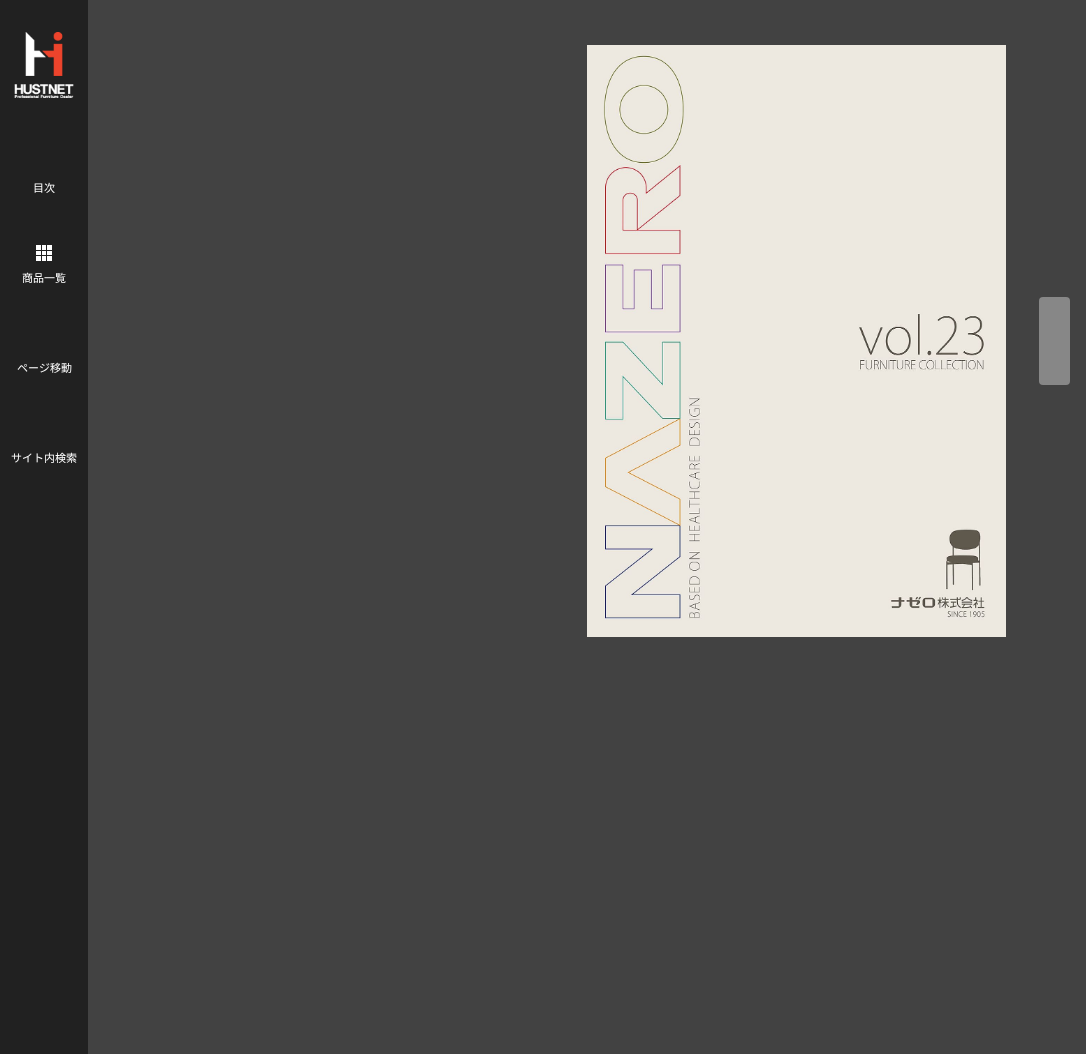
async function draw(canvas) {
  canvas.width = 1086;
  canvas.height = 1054;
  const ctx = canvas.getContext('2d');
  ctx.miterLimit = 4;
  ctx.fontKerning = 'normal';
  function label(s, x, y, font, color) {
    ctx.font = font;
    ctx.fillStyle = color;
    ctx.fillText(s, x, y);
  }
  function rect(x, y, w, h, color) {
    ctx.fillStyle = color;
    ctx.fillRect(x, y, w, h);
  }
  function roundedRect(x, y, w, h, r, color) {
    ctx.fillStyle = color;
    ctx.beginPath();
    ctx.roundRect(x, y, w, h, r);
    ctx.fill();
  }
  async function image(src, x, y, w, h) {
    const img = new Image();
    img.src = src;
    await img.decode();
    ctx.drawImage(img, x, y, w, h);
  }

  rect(0, 0, 1086, 1054, '#424242');
  rect(0, 0, 88, 1054, '#212121');
  await image('assets/img1.png', 14, 32, 60, 66);
  label('目次', 33, 192, '11px Noto Sans JP', '#fff');
  await image('assets/img2.png', 36, 245, 16, 16);
  label('商品一覧', 22, 282, '11px Noto Sans JP', '#fff');
  label('ページ移動', 17, 372, '11px Noto Sans JP', '#fff');
  label('サイト内検索', 11, 462, '11px Noto Sans JP', '#fff');
  await image('assets/img3.png', 587, 45, 419, 592);
  roundedRect(1039, 297, 31, 88, 4, '#878787');
}

draw(document.querySelector('canvas'));
